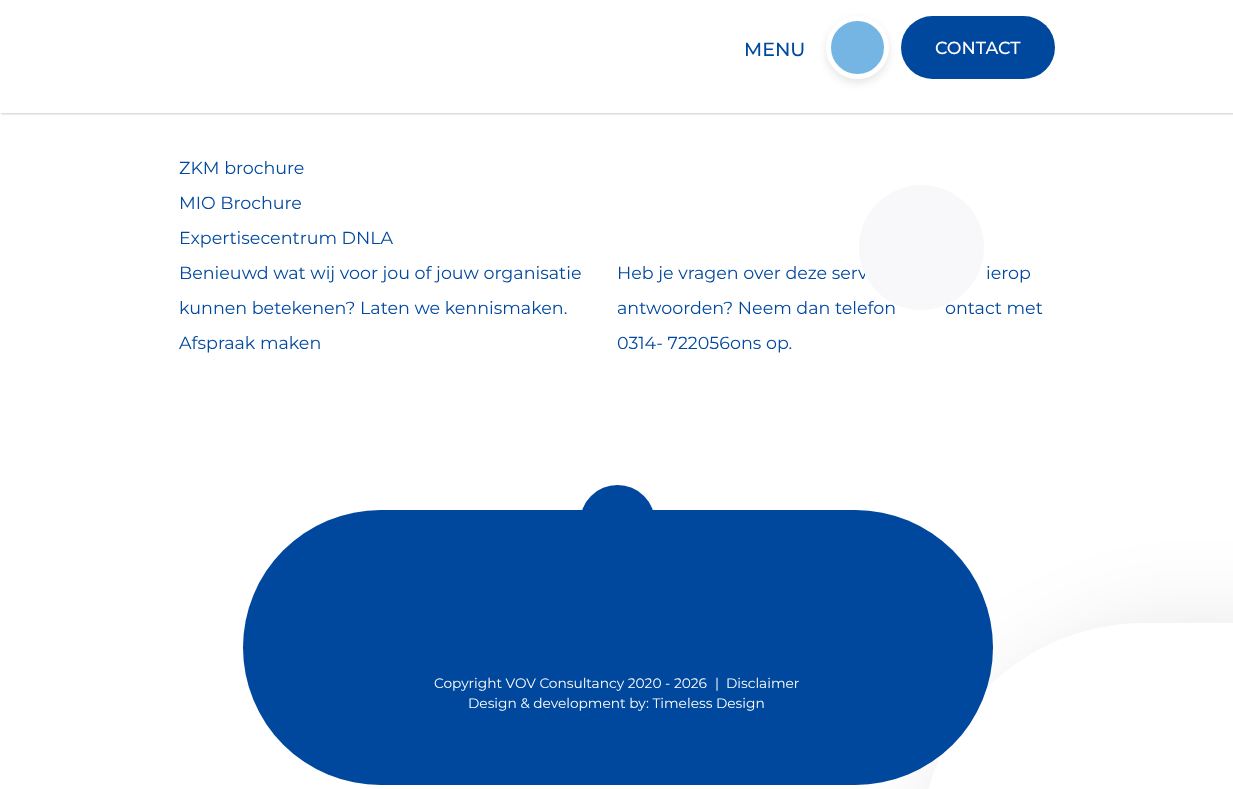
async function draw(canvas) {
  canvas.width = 1233;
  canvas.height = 789;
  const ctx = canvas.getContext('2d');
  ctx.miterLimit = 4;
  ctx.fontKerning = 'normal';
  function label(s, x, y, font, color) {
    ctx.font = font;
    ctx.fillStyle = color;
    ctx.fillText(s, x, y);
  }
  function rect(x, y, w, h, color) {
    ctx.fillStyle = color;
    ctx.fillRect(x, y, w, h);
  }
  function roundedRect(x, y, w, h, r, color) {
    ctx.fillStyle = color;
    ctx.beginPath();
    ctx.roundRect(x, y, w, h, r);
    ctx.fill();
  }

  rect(0, 0, 1233, 789, '#fff');
  ctx.fillStyle = '#00000033';
  ctx.filter = 'blur(1px)';
  ctx.beginPath();
  ctx.rect(1, 1, 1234, 113);
  ctx.fill();
  ctx.filter = 'none';
  rect(0, 0, 1233, 113, '#fff');
  ctx.fillStyle = '#0000001a';
  ctx.filter = 'blur(4px)';
  ctx.beginPath();
  ctx.roundRect(826, 20, 63, 63, 31.5);
  ctx.fill();
  ctx.filter = 'none';
  ctx.fillStyle = '#74b5e4';
  ctx.beginPath();
  ctx.arc(857.5, 47.5, 29, 0, 2 * Math.PI);
  ctx.fill();
  ctx.strokeStyle = '#fff';
  ctx.lineWidth = 5;
  ctx.stroke();
  label('MENU', 744, 56, '500 19px Montserrat', '#00489d');
  roundedRect(901, 16, 154, 63, 31.5, '#00489d');
  label('CONTACT', 935, 54, '500 17.5px Montserrat', '#fff');
  label('ZKM brochure', 179, 174, '17.5px Montserrat', '#00489d');
  label('MIO Brochure', 179, 209, '17.5px Montserrat', '#00489d');
  label('Expertisecentrum DNLA', 179, 244, '17.5px Montserrat', '#00489d');
  label('Benieuwd wat wij voor jou of jouw organisatie', 179, 279, '17.5px Montserrat', '#00489d');
  label('kunnen betekenen? Laten we kennismaken.', 179, 314, '17.5px Montserrat', '#00489d');
  label('Afspraak maken', 179, 349, '17.5px Montserrat', '#00489d');
  label('Heb je vragen over deze serv', 617, 279, '17.5px Montserrat', '#00489d');
  label('ierop', 986, 279, '17.5px Montserrat', '#00489d');
  label('antwoorden? Neem dan telefon', 617, 314, '17.5px Montserrat', '#00489d');
  label('ontact met', 945, 314, '17.5px Montserrat', '#00489d');
  label('0314- 722056', 617, 349, '17.5px Montserrat', '#00489d');
  label('ons op.', 730, 349, '17.5px Montserrat', '#00489d');
  ctx.fillStyle = '#0000001a';
  ctx.filter = 'blur(47px)';
  ctx.beginPath();
  ctx.roundRect(921, 626, 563, 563, 281.5);
  ctx.fill();
  ctx.filter = 'none';
  roundedRect(921, 623, 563, 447, 281, '#fff');
  roundedRect(243, 510, 750, 275, 137.5, '#00489d');
  ctx.beginPath();
  ctx.arc(617.5, 522.5, 37.5, 0, 2 * Math.PI);
  ctx.fill();
  ctx.fillStyle = '#f8f8fb';
  ctx.beginPath();
  ctx.arc(921.5, 247.5, 62.5, 0, 2 * Math.PI);
  ctx.fill();
  label('Copyright VOV Consultancy 2020 - 2026', 434, 688, '13.75px Montserrat', '#fff');
  label('|', 715, 688, '13.75px Montserrat', '#fff');
  label('Disclaimer', 726, 688, '13.75px Montserrat', '#fff');
  label('Design & development by: Timeless Design', 468, 708, '13.75px Montserrat', '#fff');
}

draw(document.querySelector('canvas'));
